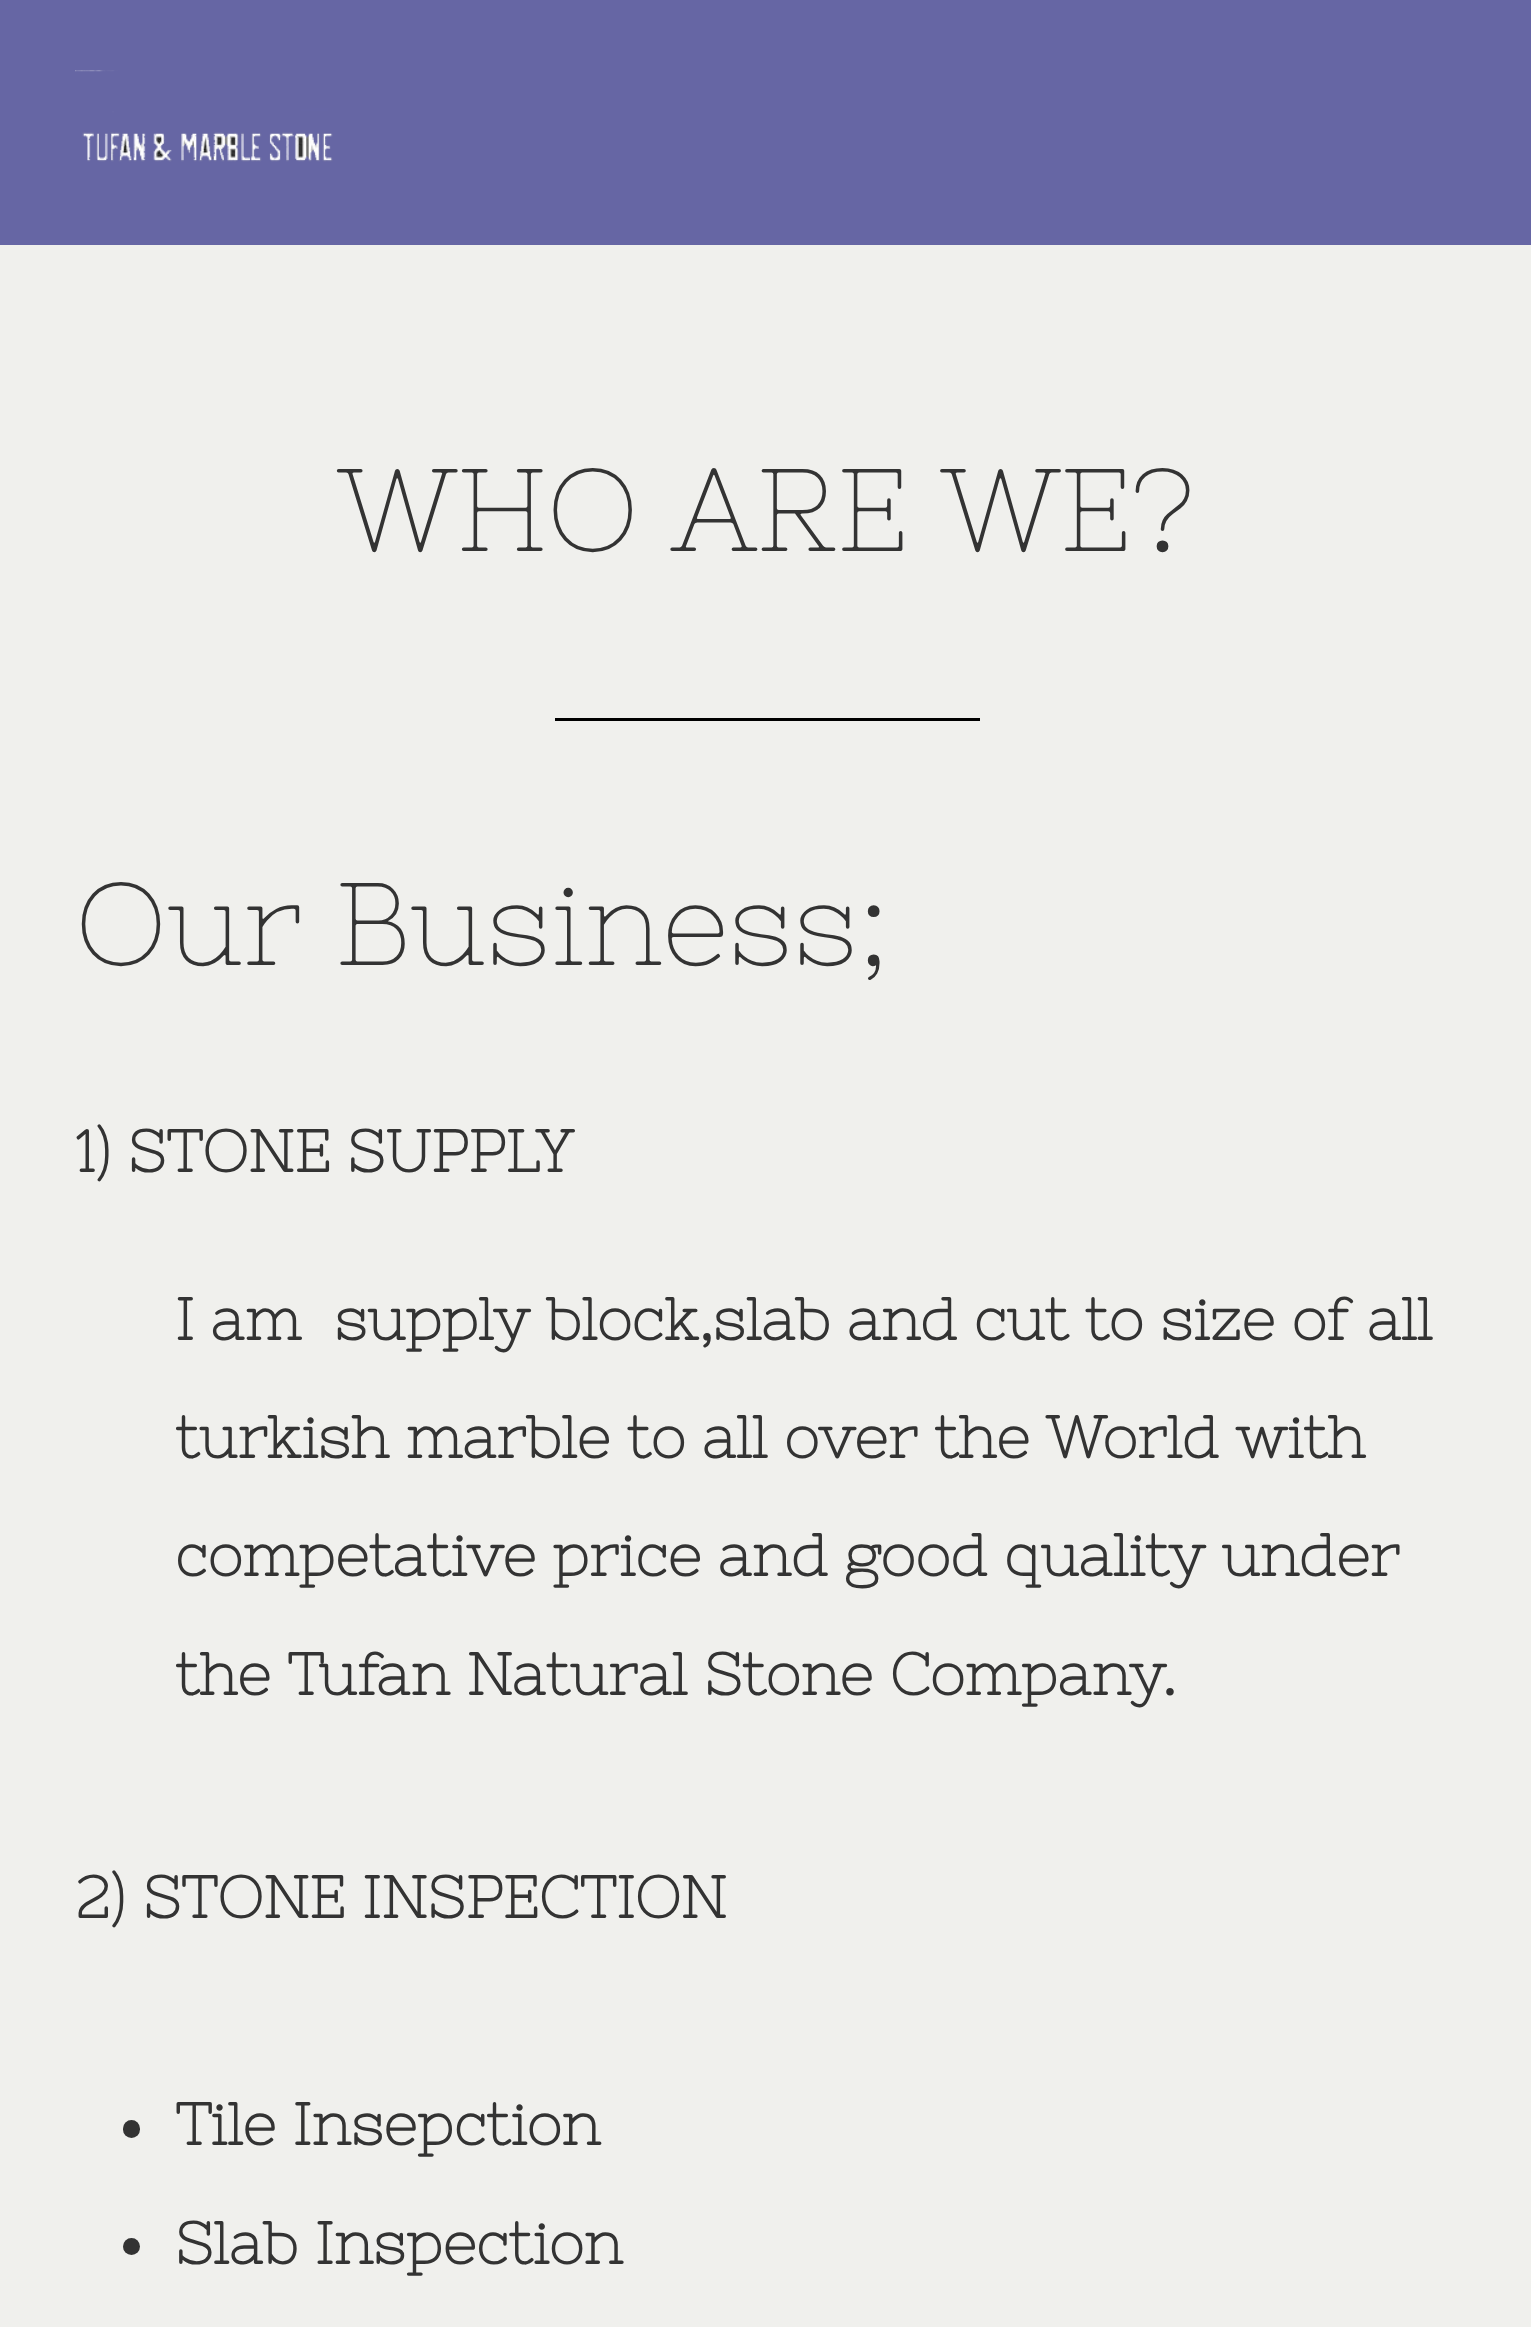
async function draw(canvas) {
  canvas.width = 1531;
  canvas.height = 2327;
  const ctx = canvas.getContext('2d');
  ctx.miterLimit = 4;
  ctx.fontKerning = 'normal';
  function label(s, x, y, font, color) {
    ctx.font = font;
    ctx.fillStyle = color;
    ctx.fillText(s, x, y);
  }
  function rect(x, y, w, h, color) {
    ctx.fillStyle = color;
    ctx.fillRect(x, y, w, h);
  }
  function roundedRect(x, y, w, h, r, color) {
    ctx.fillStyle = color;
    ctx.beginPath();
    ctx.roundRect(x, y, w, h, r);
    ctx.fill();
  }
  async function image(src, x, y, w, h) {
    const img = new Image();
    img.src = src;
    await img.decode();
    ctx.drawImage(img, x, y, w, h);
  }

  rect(0, 0, 1531, 2327, '#f0f0ed');
  rect(0, 0, 1531, 245, '#6666a4');
  await image('assets/img1.png', 75, 70, 258, 92);
  label('WHO ARE WE?', 338, 551, '117px Nixie One', '#333');
  rect(555, 718, 425, 3, '#000');
  label('Our Business;', 75, 965, '117px Nixie One', '#333');
  label('1) STONE SUPPLY', 75, 1172, 'bold 59.1px Nixie One', '#333');
  label('I am  supply block,slab and cut to size of all', 175, 1340, 'bold 59.1px Nixie One', '#333');
  label('turkish marble to all over the World with', 175, 1458, 'bold 59.1px Nixie One', '#333');
  label('competative price and good quality under', 175, 1576, 'bold 59.1px Nixie One', '#333');
  label('the Tufan Natural Stone Company.', 175, 1695, 'bold 59.1px Nixie One', '#333');
  label('2) STONE INSPECTION', 75, 1918, 'bold 59.1px Nixie One', '#333');
  roundedRect(123, 2120, 17, 18, 8.5, '#333');
  label('Tile Insepction', 175, 2145, 'bold 59.1px Nixie One', '#333');
  ctx.beginPath();
  ctx.arc(131.5, 2246.5, 8.5, 0, 2 * Math.PI);
  ctx.fill();
  label('Slab Inspection', 175, 2264, 'bold 59.1px Nixie One', '#333');
}

draw(document.querySelector('canvas'));
